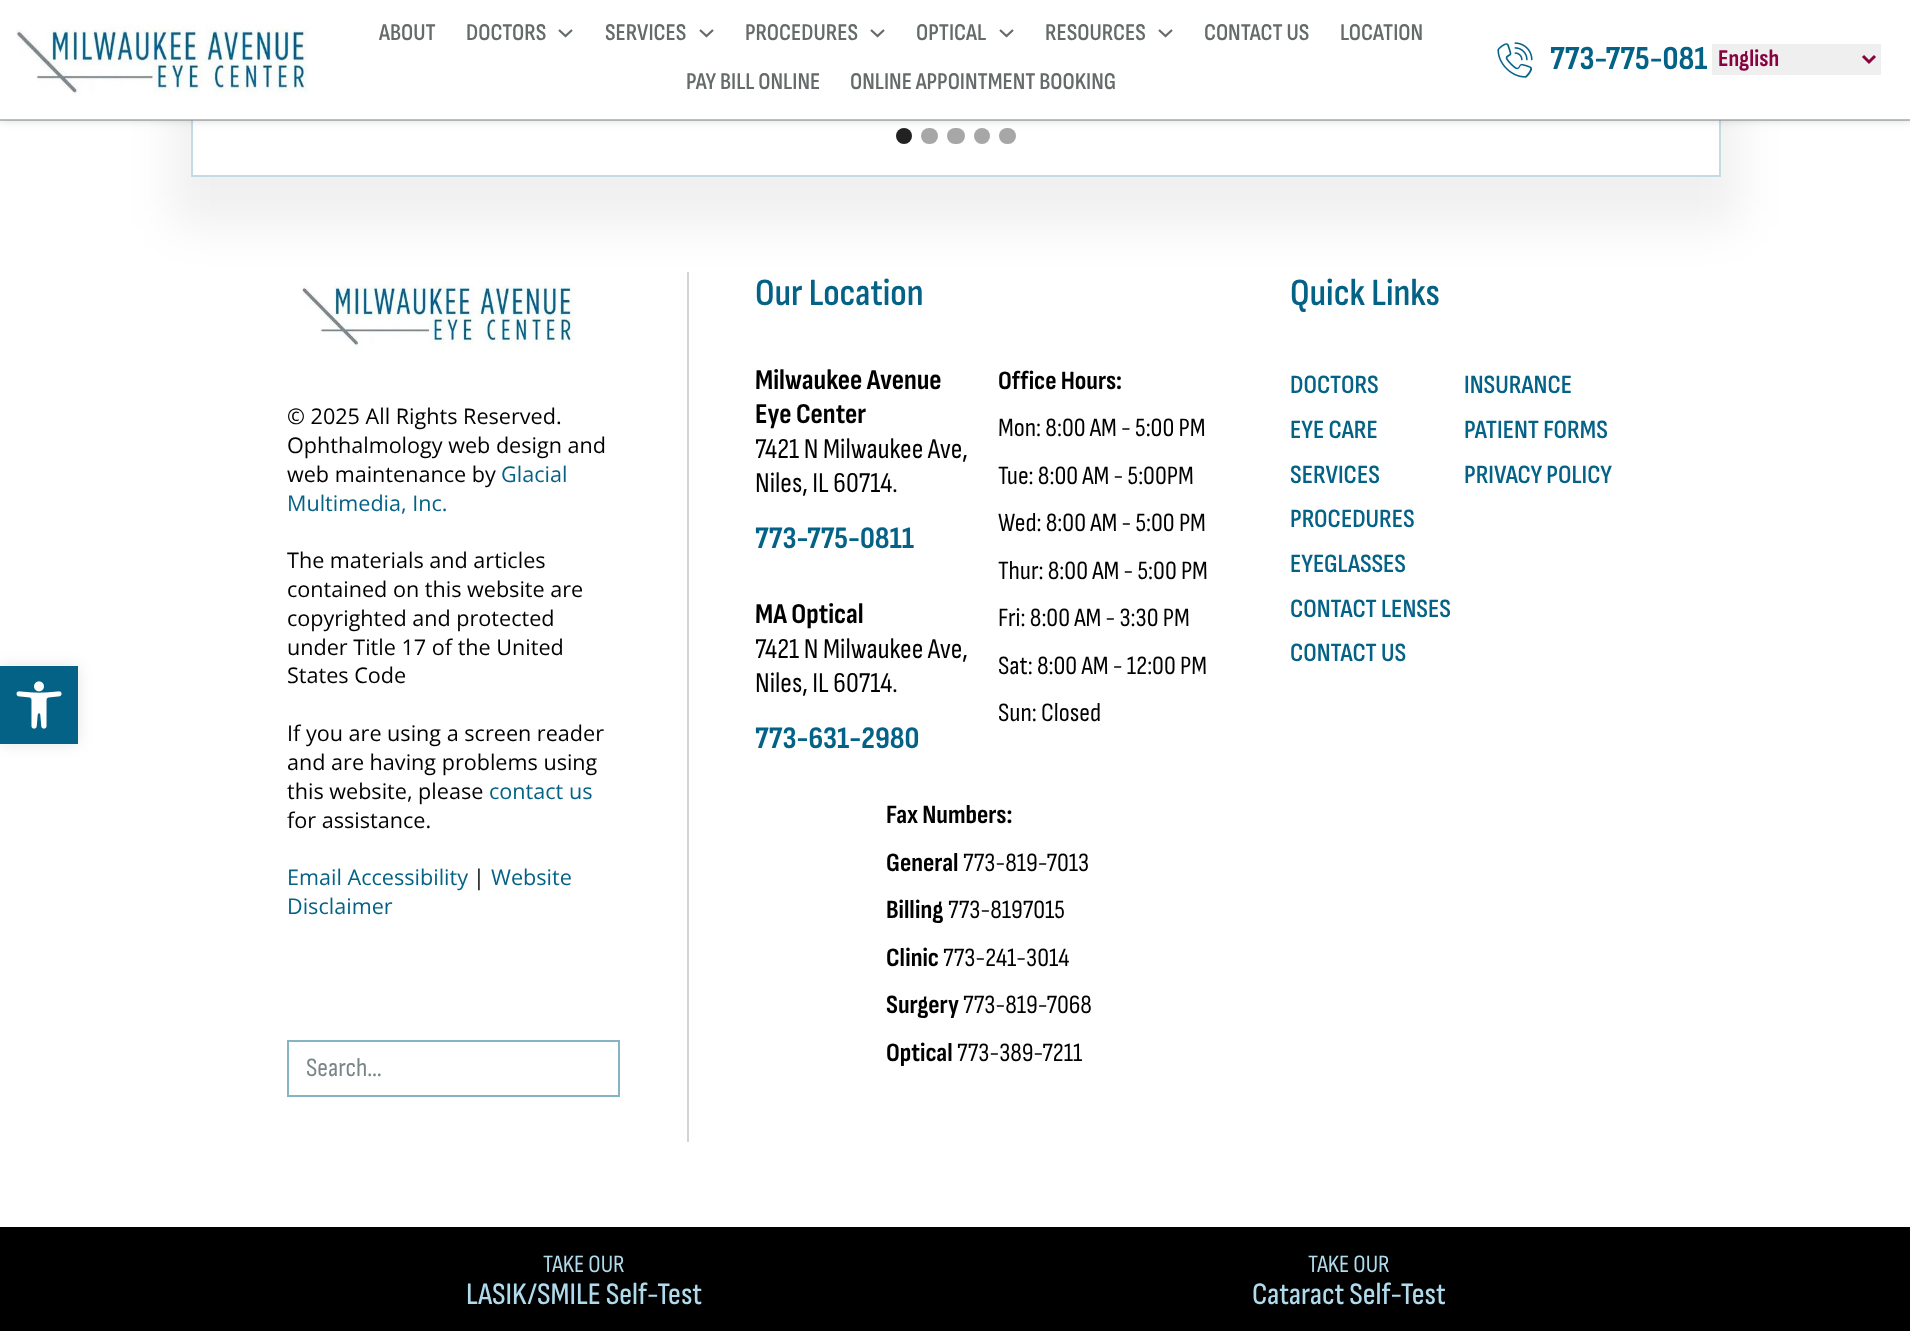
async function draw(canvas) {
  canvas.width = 1910;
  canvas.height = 1331;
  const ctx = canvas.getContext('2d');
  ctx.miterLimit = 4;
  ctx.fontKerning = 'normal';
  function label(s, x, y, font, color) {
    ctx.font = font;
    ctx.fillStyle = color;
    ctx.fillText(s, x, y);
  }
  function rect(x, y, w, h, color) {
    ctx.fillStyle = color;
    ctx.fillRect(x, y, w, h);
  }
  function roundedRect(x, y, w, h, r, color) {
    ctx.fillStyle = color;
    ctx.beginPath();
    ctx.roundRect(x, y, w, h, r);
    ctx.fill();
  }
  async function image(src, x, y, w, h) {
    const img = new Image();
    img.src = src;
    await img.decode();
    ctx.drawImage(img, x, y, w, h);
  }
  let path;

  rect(0, 0, 1910, 1331, '#fff');
  ctx.save();
  path = new Path2D('M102 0H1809V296H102ZM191-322H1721V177H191Z');
  ctx.clip(path, 'evenodd');
  ctx.fillStyle = '#0000000f';
  ctx.filter = 'blur(22.5px)';
  ctx.beginPath();
  ctx.rect(171, -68, 1569, 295);
  ctx.fill();
  ctx.filter = 'none';
  ctx.restore();
  ctx.strokeStyle = '#0462863b';
  ctx.lineWidth = 2;
  ctx.strokeRect(192, -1, 1528, 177);
  ctx.fillStyle = '#222';
  ctx.beginPath();
  ctx.arc(904, 136, 8, 0, 2 * Math.PI);
  ctx.fill();
  roundedRect(921, 128, 17, 16, 8, '#a7a7a7');
  roundedRect(947, 128, 18, 16, 8, '#a7a7a7');
  ctx.beginPath();
  ctx.arc(982, 136, 8, 0, 2 * Math.PI);
  ctx.fill();
  roundedRect(999, 128, 17, 16, 8, '#a7a7a7');
  ctx.fillStyle = '#0000002b';
  ctx.filter = 'blur(5px)';
  ctx.beginPath();
  ctx.rect(0, 0, 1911, 120);
  ctx.fill();
  ctx.filter = 'none';
  rect(0, 0, 1910, 120, '#fff');
  rect(0, 119, 1910, 2, '#7a858787');
  await image('assets/img1.png', 16, 23, 292, 74);
  label('ABOUT', 379, 40, '600 24px Sofia Sans Condensed', '#656a6b');
  label('DOCTORS', 466, 40, '600 24px Sofia Sans Condensed', '#656a6b');
  path = new Path2D('M559 30L565.5 36L572 30');
  ctx.strokeStyle = '#656a6b';
  ctx.lineWidth = 2.2;
  ctx.stroke(path);
  label('SERVICES', 605, 40, '600 24px Sofia Sans Condensed', '#656a6b');
  path = new Path2D('M700 30L706.5 36L713 30');
  ctx.stroke(path);
  label('PROCEDURES', 745, 40, '600 24px Sofia Sans Condensed', '#656a6b');
  path = new Path2D('M871 30L877.5 36L884 30');
  ctx.stroke(path);
  label('OPTICAL', 916, 40, '600 24px Sofia Sans Condensed', '#656a6b');
  path = new Path2D('M1000 30L1006.5 36L1013 30');
  ctx.stroke(path);
  label('RESOURCES', 1045, 40, '600 24px Sofia Sans Condensed', '#656a6b');
  path = new Path2D('M1159 30L1165.5 36L1172 30');
  ctx.stroke(path);
  label('CONTACT US', 1204, 40, '600 24px Sofia Sans Condensed', '#656a6b');
  label('LOCATION', 1340, 40, '600 24px Sofia Sans Condensed', '#656a6b');
  label('PAY BILL ONLINE', 686, 89, '600 24px Sofia Sans Condensed', '#656a6b');
  label('ONLINE APPOINTMENT BOOKING', 850, 89, '600 24px Sofia Sans Condensed', '#656a6b');
  await image('assets/img2.png', 1497, 42, 36, 36);
  label('773-775-081', 1550, 69, 'bold 33.5px Sofia Sans Condensed', '#046286');
  rect(1712, 44, 169, 31, '#efefef');
  path = new Path2D('M1863 56L1869 62L1875 56');
  ctx.strokeStyle = '#880240';
  ctx.lineWidth = 3;
  ctx.stroke(path);
  label('English', 1718, 66, 'bold 24px Sofia Sans Condensed', '#880240');
  ctx.fillStyle = '#0000001a';
  ctx.filter = 'blur(7.5px)';
  ctx.beginPath();
  ctx.rect(0, 666, 78, 78);
  ctx.fill();
  ctx.filter = 'none';
  rect(0, 666, 78, 78, '#046286');
  await image('assets/img3.png', 16, 681, 46, 48);
  rect(687, 272, 2, 870, '#d0d4d5');
  await image('assets/img4.png', 301, 280, 274, 69);
  label('© 2025 All Rights Reserved.', 287, 424, '21.6px Open Sans', '#000');
  label('Ophthalmology web design and', 287, 453, '21.6px Open Sans', '#000');
  label('web maintenance by', 287, 482, '21.6px Open Sans', '#000');
  label('Glacial', 501, 482, '21.6px Open Sans', '#046286');
  label('Multimedia, Inc.', 287, 511, '21.6px Open Sans', '#046286');
  label('The materials and articles', 287, 568, '21.6px Open Sans', '#000');
  label('contained on this website are', 287, 597, '21.6px Open Sans', '#000');
  label('copyrighted and protected', 287, 626, '21.6px Open Sans', '#000');
  label('under Title 17 of the United', 287, 655, '21.6px Open Sans', '#000');
  label('States Code', 287, 683, '21.6px Open Sans', '#000');
  label('If you are using a screen reader', 287, 741, '21.6px Open Sans', '#000');
  label('and are having problems using', 287, 770, '21.6px Open Sans', '#000');
  label('this website, please', 287, 799, '21.6px Open Sans', '#000');
  label('contact us', 489, 799, '21.6px Open Sans', '#046286');
  label('for assistance.', 287, 828, '21.6px Open Sans', '#000');
  label('Email Accessibility', 287, 885, '21.6px Open Sans', '#046286');
  label('|', 473, 885, '21.6px Open Sans', '#000');
  label('Website', 491, 885, '21.6px Open Sans', '#046286');
  label('Disclaimer', 287, 914, '21.6px Open Sans', '#046286');
  ctx.strokeStyle = '#87b4c5';
  ctx.lineWidth = 2;
  ctx.strokeRect(288, 1041, 331, 55);
  label('Search…', 306, 1076, '26.5px Sofia Sans Condensed', '#7a8587');
  label('Our Location', 755, 305, '600 38.5px Sofia Sans Condensed', '#046286');
  label('Milwaukee Avenue', 755, 389, 'bold 28.75px Sofia Sans Condensed', '#000');
  label('Eye Center', 755, 423, 'bold 28.75px Sofia Sans Condensed', '#000');
  label('7421 N Milwaukee Ave,', 755, 458, '28.75px Sofia Sans Condensed', '#000');
  label('Niles, IL 60714.', 755, 492, '28.75px Sofia Sans Condensed', '#000');
  label('773-775-0811', 755, 548, 'bold 31.25px Sofia Sans Condensed', '#046286');
  label('MA Optical', 755, 623, 'bold 28.75px Sofia Sans Condensed', '#000');
  label('7421 N Milwaukee Ave,', 755, 658, '28.75px Sofia Sans Condensed', '#000');
  label('Niles, IL 60714.', 755, 692, '28.75px Sofia Sans Condensed', '#000');
  label('773-631-2980', 755, 748, 'bold 31.25px Sofia Sans Condensed', '#046286');
  label('Office Hours:', 998, 389, 'bold 26.5px Sofia Sans Condensed', '#000');
  label('Mon: 8:00 AM - 5:00 PM', 998, 436, '26.5px Sofia Sans Condensed', '#000');
  label('Tue: 8:00 AM - 5:00PM', 998, 484, '26.5px Sofia Sans Condensed', '#000');
  label('Wed: 8:00 AM - 5:00 PM', 998, 531, '26.5px Sofia Sans Condensed', '#000');
  label('Thur: 8:00 AM - 5:00 PM', 998, 579, '26.5px Sofia Sans Condensed', '#000');
  label('Fri: 8:00 AM - 3:30 PM', 998, 626, '26.5px Sofia Sans Condensed', '#000');
  label('Sat: 8:00 AM - 12:00 PM', 998, 674, '26.5px Sofia Sans Condensed', '#000');
  label('Sun: Closed', 998, 721, '26.5px Sofia Sans Condensed', '#000');
  label('Fax Numbers:', 886, 823, 'bold 26.5px Sofia Sans Condensed', '#000');
  label('General', 886, 871, 'bold 26.5px Sofia Sans Condensed', '#000');
  label('773-819-7013', 963, 871, '26.5px Sofia Sans Condensed', '#000');
  label('Billing', 886, 918, 'bold 26.5px Sofia Sans Condensed', '#000');
  label('773-8197015', 948, 918, '26.5px Sofia Sans Condensed', '#000');
  label('Clinic', 886, 966, 'bold 26.5px Sofia Sans Condensed', '#000');
  label('773-241-3014', 943, 966, '26.5px Sofia Sans Condensed', '#000');
  label('Surgery', 886, 1013, 'bold 26.5px Sofia Sans Condensed', '#000');
  label('773-819-7068', 963, 1013, '26.5px Sofia Sans Condensed', '#000');
  label('Optical', 886, 1061, 'bold 26.5px Sofia Sans Condensed', '#000');
  label('773-389-7211', 957, 1061, '26.5px Sofia Sans Condensed', '#000');
  label('Quick Links', 1290, 305, '600 38.5px Sofia Sans Condensed', '#046286');
  label('DOCTORS', 1290, 393, '600 26.5px Sofia Sans Condensed', '#046286');
  label('EYE CARE', 1290, 438, '600 26.5px Sofia Sans Condensed', '#046286');
  label('SERVICES', 1290, 483, '600 26.5px Sofia Sans Condensed', '#046286');
  label('PROCEDURES', 1290, 527, '600 26.5px Sofia Sans Condensed', '#046286');
  label('EYEGLASSES', 1290, 572, '600 26.5px Sofia Sans Condensed', '#046286');
  label('CONTACT LENSES', 1290, 617, '600 26.5px Sofia Sans Condensed', '#046286');
  label('CONTACT US', 1290, 661, '600 26.5px Sofia Sans Condensed', '#046286');
  label('INSURANCE', 1464, 393, '600 26.5px Sofia Sans Condensed', '#046286');
  label('PATIENT FORMS', 1464, 438, '600 26.5px Sofia Sans Condensed', '#046286');
  label('PRIVACY POLICY', 1464, 483, '600 26.5px Sofia Sans Condensed', '#046286');
  rect(0, 1227, 1910, 104, '#000');
  label('TAKE OUR', 543, 1272, '25px Sofia Sans Condensed', '#afdbec');
  label('LASIK/SMILE Self-Test', 466, 1304, '500 31.25px Sofia Sans Condensed', '#afdbec');
  label('TAKE OUR', 1308, 1272, '25px Sofia Sans Condensed', '#afdbec');
  label('Cataract Self-Test', 1252, 1304, '500 31.25px Sofia Sans Condensed', '#afdbec');
}

draw(document.querySelector('canvas'));
